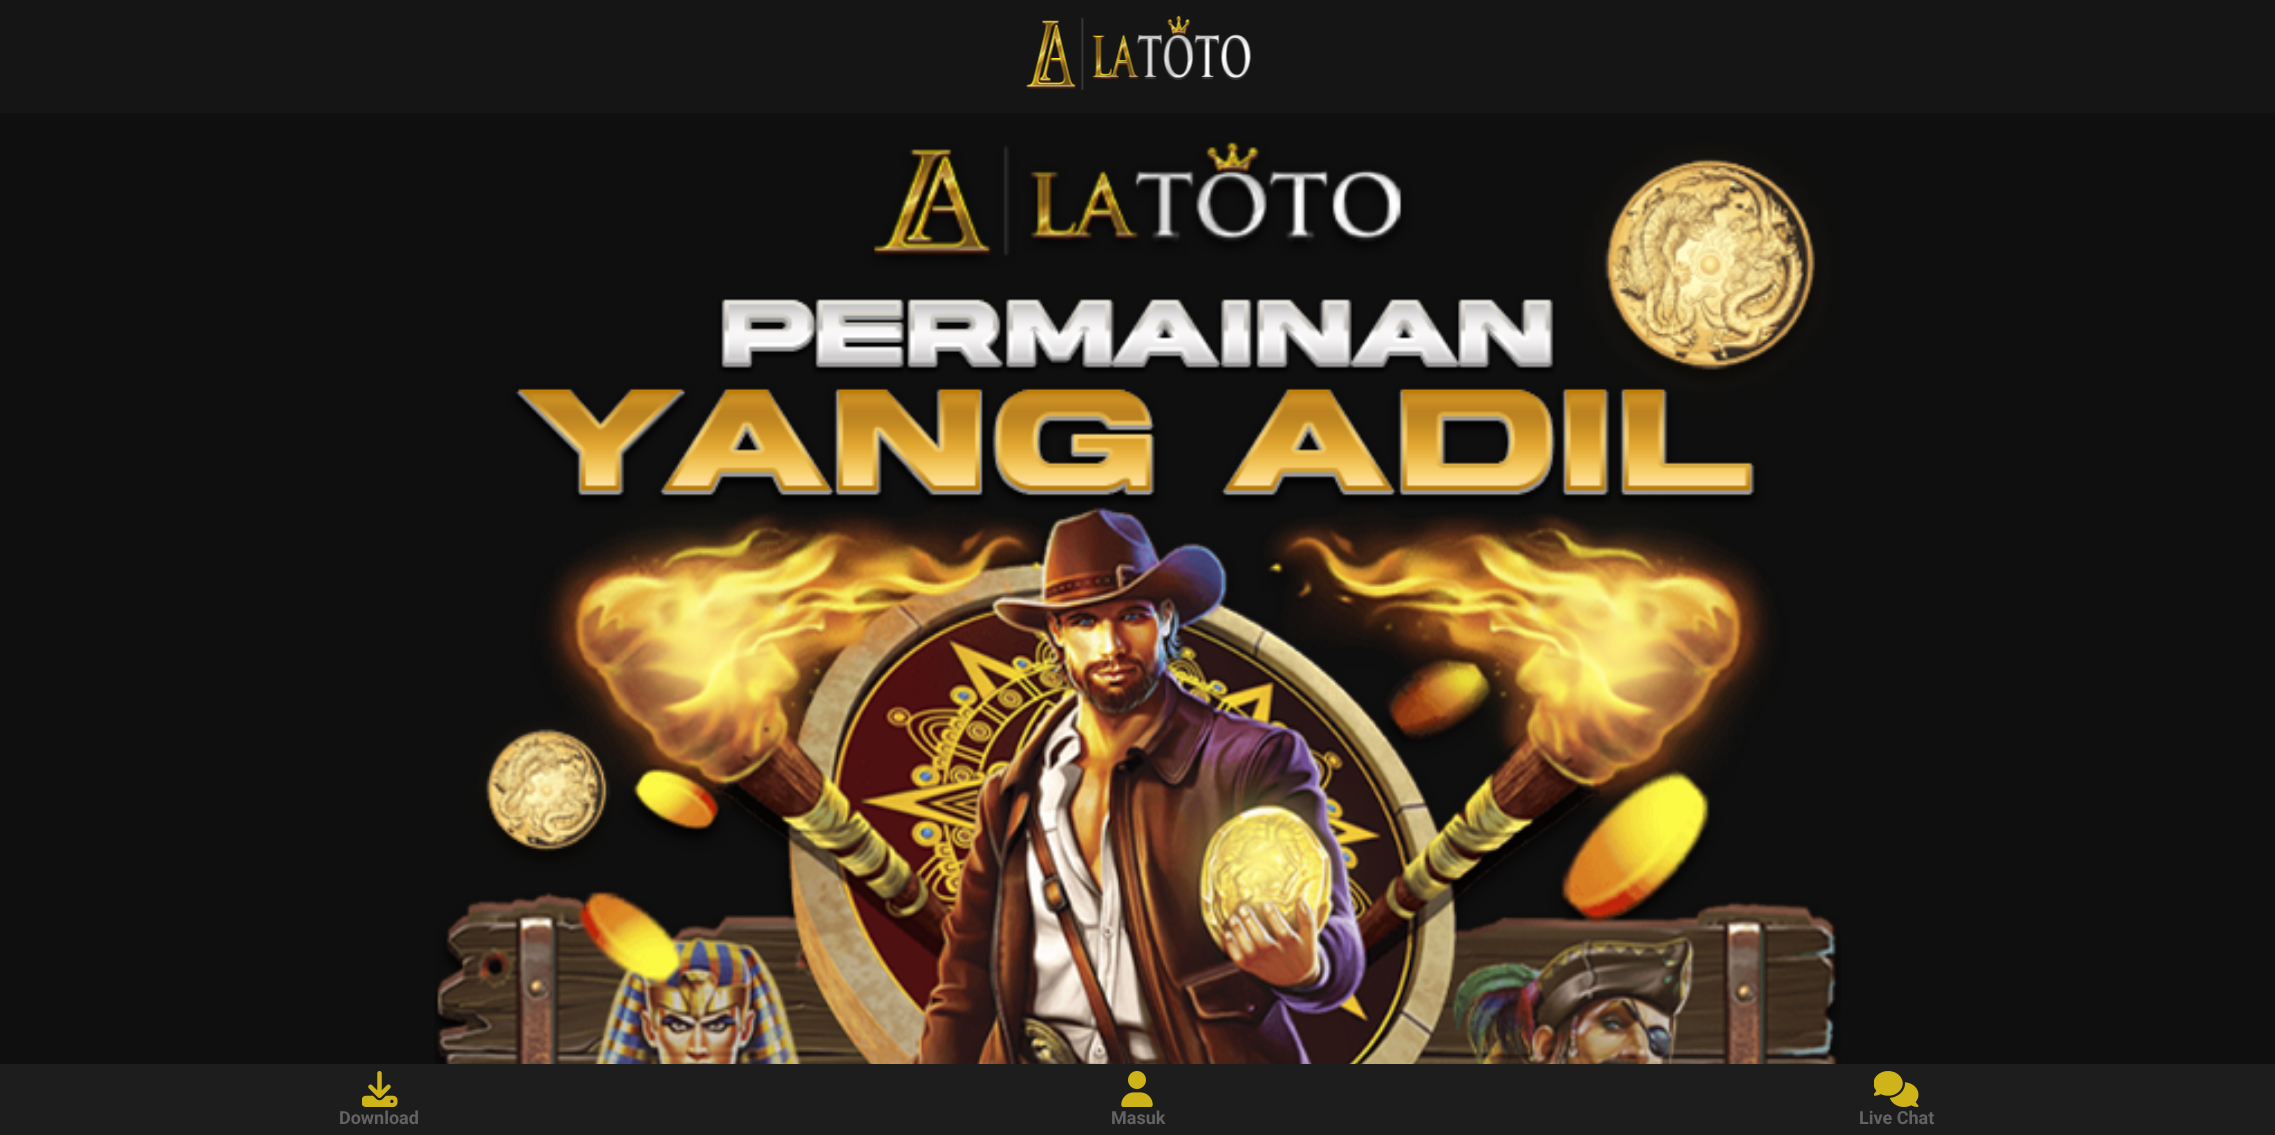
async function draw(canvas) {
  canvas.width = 2275;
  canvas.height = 1135;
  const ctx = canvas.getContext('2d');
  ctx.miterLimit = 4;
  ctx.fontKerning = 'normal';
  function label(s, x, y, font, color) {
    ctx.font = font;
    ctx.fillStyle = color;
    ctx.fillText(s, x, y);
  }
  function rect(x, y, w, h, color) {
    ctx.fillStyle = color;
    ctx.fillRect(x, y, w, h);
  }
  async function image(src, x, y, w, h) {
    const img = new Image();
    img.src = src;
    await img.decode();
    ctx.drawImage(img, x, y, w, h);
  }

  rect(0, 0, 2275, 1135, '#0f0f0f');
  rect(0, 0, 2275, 113, '#151515');
  await image('assets/img1.png', 1026, 15, 225, 75);
  await image('assets/img2.png', 434, 142, 1407, 922);
  rect(0, 1064, 2275, 71, '#1d1d1d');
  await image('assets/img3.png', 362, 1071, 36, 36);
  label('Download', 339, 1124, 'bold 18px Roboto', '#636363');
  await image('assets/img4.png', 1121, 1071, 32, 36);
  label('Masuk', 1111, 1124, 'bold 18px Roboto', '#636363');
  await image('assets/img5.png', 1874, 1071, 45, 36);
  label('Live Chat', 1859, 1124, 'bold 18px Roboto', '#636363');
}

draw(document.querySelector('canvas'));
